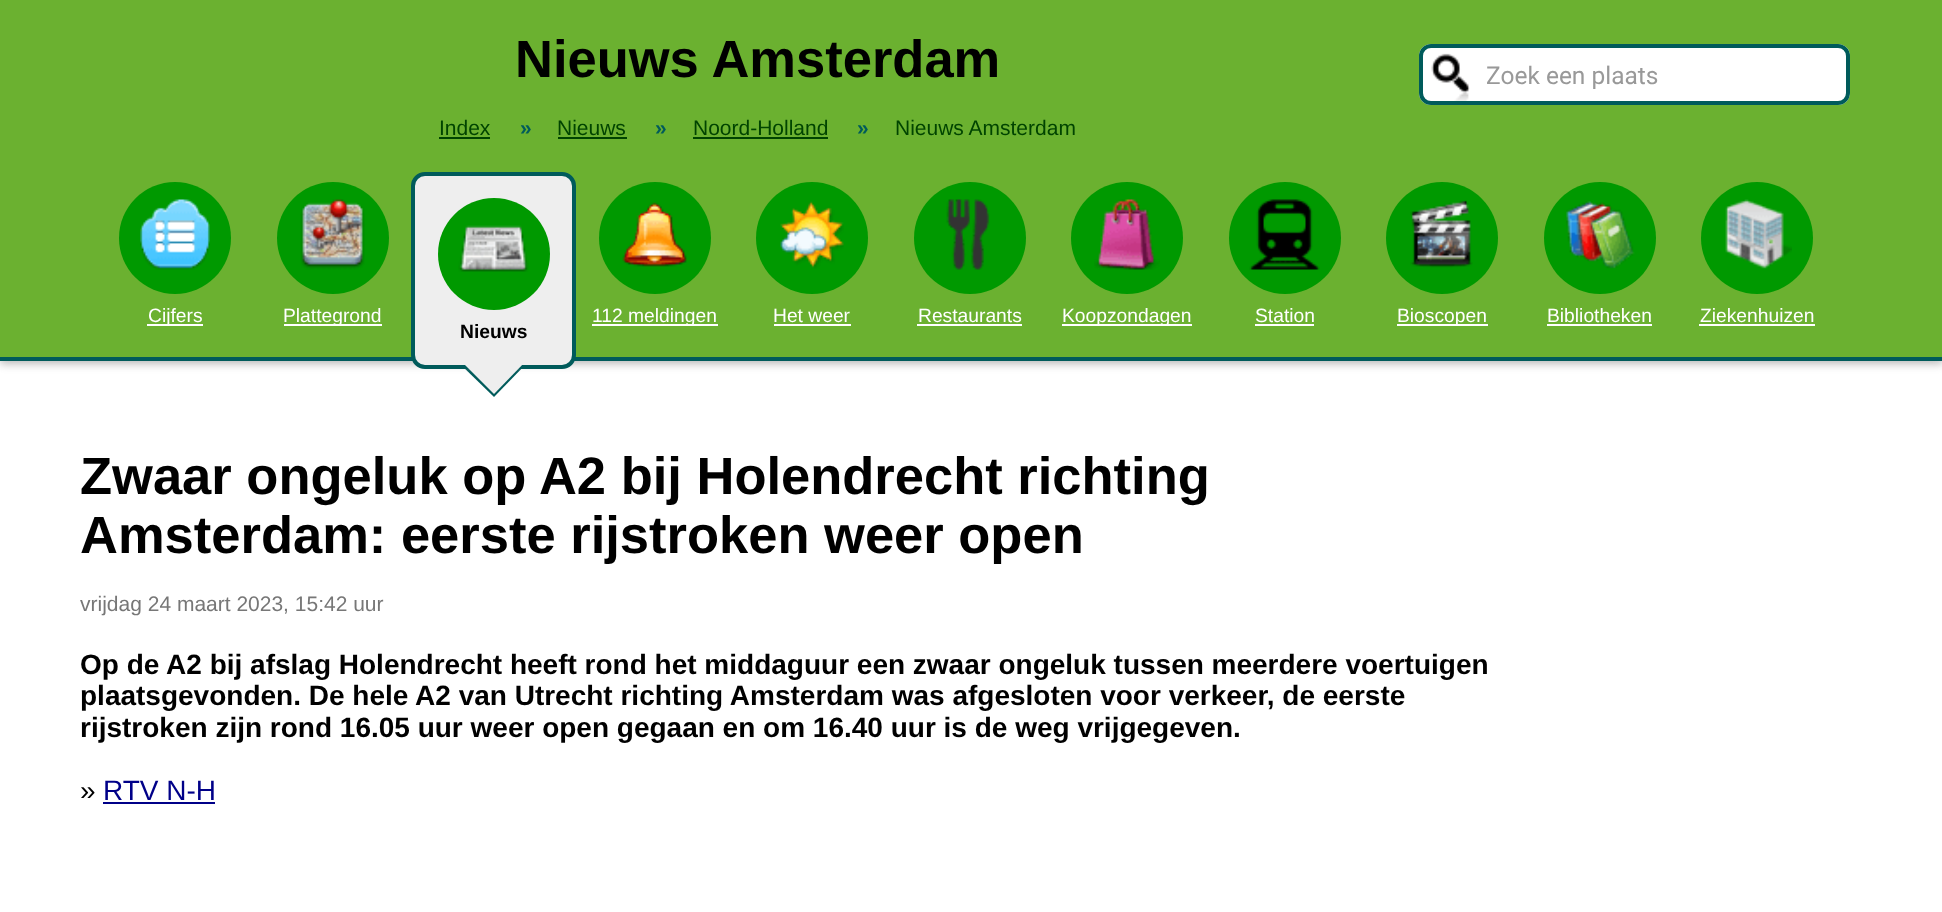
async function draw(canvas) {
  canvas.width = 1942;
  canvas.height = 912;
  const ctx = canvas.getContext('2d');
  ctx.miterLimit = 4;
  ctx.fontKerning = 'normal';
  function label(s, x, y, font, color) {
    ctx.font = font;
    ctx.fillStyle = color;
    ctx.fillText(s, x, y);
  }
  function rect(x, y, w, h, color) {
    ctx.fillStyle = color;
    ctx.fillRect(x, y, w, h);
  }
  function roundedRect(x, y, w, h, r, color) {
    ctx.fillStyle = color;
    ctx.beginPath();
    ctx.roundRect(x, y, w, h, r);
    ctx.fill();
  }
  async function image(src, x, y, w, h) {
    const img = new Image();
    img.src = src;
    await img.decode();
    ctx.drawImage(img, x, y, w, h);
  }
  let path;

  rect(0, 0, 1942, 912, '#fff');
  ctx.fillStyle = '#005b5b';
  path = new Path2D('M458 362H528L494 397Z');
  ctx.fill(path);
  ctx.fillStyle = '#bbb';
  ctx.filter = 'blur(4.5px)';
  ctx.beginPath();
  ctx.rect(0, 4, 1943, 360);
  ctx.fill();
  ctx.filter = 'none';
  rect(0, 0, 1942, 357, '#6bb130');
  rect(0, 357, 1942, 4, '#005b5b');
  label('Nieuws Amsterdam', 515, 77, 'bold 52.5px Liberation Sans', '#000');
  roundedRect(1419, 44, 431, 61, 12, '#fff');
  await image('assets/img1.png', 1419, 53, 51, 48);
  ctx.beginPath();
  ctx.roundRect(1421, 46, 427, 57, 10);
  ctx.strokeStyle = '#005b5b';
  ctx.lineWidth = 4;
  ctx.stroke();
  label('Zoek een plaats', 1486, 84, '24.5px Roboto', '#999');
  label('Index', 439, 135, '21px Liberation Sans', '#040');
  rect(439, 137, 51, 2, '#040');
  label('»', 520, 135, 'bold 21px Liberation Sans', '#005b5b');
  label('Nieuws', 557, 135, '21px Liberation Sans', '#040');
  rect(558, 137, 69, 2, '#040');
  label('»', 655, 135, 'bold 21px Liberation Sans', '#005b5b');
  label('Noord-Holland', 693, 135, '21px Liberation Sans', '#040');
  rect(693, 137, 135, 2, '#040');
  label('»', 857, 135, 'bold 21px Liberation Sans', '#005b5b');
  label('Nieuws Amsterdam', 895, 135, '21px Liberation Sans', '#040');
  ctx.fillStyle = '#090';
  ctx.beginPath();
  ctx.arc(175, 238, 56, 0, 2 * Math.PI);
  ctx.fill();
  await image('assets/img2.png', 140, 199, 70, 71);
  rect(147, 324, 56, 2, '#fff');
  label('Cijfers', 148, 322, '19.25px Liberation Sans', '#fff');
  ctx.fillStyle = '#090';
  ctx.beginPath();
  ctx.arc(333, 238, 56, 0, 2 * Math.PI);
  ctx.fill();
  await image('assets/img3.png', 300, 199, 65, 71);
  rect(284, 324, 98, 2, '#fff');
  label('Plattegrond', 283, 322, '19.25px Liberation Sans', '#fff');
  ctx.fillStyle = '#090';
  ctx.beginPath();
  ctx.arc(655, 238, 56, 0, 2 * Math.PI);
  ctx.fill();
  await image('assets/img4.png', 622, 202, 65, 65);
  rect(592, 324, 126, 2, '#fff');
  label('112 meldingen', 592, 322, '19.25px Liberation Sans', '#fff');
  ctx.fillStyle = '#090';
  ctx.beginPath();
  ctx.arc(812, 238, 56, 0, 2 * Math.PI);
  ctx.fill();
  await image('assets/img5.png', 780, 201, 64, 68);
  label('Het weer', 773, 322, '19.25px Liberation Sans', '#fff');
  rect(774, 324, 77, 2, '#fff');
  ctx.fillStyle = '#090';
  ctx.beginPath();
  ctx.arc(970, 238, 56, 0, 2 * Math.PI);
  ctx.fill();
  await image('assets/img6.png', 946, 199, 44, 71);
  label('Restaurants', 918, 322, '19.25px Liberation Sans', '#fff');
  rect(917, 324, 105, 2, '#fff');
  ctx.fillStyle = '#090';
  ctx.beginPath();
  ctx.arc(1127, 238, 56, 0, 2 * Math.PI);
  ctx.fill();
  await image('assets/img7.png', 1094, 199, 66, 71);
  rect(1062, 324, 130, 2, '#fff');
  label('Koopzondagen', 1062, 322, '19.25px Liberation Sans', '#fff');
  ctx.fillStyle = '#090';
  ctx.beginPath();
  ctx.arc(1285, 238, 56, 0, 2 * Math.PI);
  ctx.fill();
  await image('assets/img8.png', 1249, 199, 71, 71);
  label('Station', 1255, 322, '19.25px Liberation Sans', '#fff');
  rect(1255, 324, 59, 2, '#fff');
  ctx.fillStyle = '#090';
  ctx.beginPath();
  ctx.arc(1442, 238, 56, 0, 2 * Math.PI);
  ctx.fill();
  await image('assets/img9.png', 1410, 200, 63, 68);
  rect(1397, 324, 91, 2, '#fff');
  label('Bioscopen', 1397, 322, '19.25px Liberation Sans', '#fff');
  ctx.fillStyle = '#090';
  ctx.beginPath();
  ctx.arc(1600, 238, 56, 0, 2 * Math.PI);
  ctx.fill();
  await image('assets/img10.png', 1566, 201, 69, 68);
  label('Bibliotheken', 1547, 322, '19.25px Liberation Sans', '#fff');
  rect(1547, 324, 105, 2, '#fff');
  ctx.fillStyle = '#090';
  ctx.beginPath();
  ctx.arc(1757, 238, 56, 0, 2 * Math.PI);
  ctx.fill();
  await image('assets/img11.png', 1725, 199, 67, 70);
  label('Ziekenhuizen', 1700, 322, '19.25px Liberation Sans', '#fff');
  rect(1699, 324, 116, 2, '#fff');
  ctx.fillStyle = '#eee';
  ctx.beginPath();
  ctx.roundRect(413, 174, 161, 193, 12);
  ctx.fill();
  ctx.stroke();
  ctx.fillStyle = '#090';
  ctx.beginPath();
  ctx.arc(494, 254, 56, 0, 2 * Math.PI);
  ctx.fill();
  await image('assets/img12.png', 458, 225, 71, 47);
  label('Nieuws', 460, 338, 'bold 19.25px Liberation Sans', '#000');
  ctx.fillStyle = '#eee';
  path = new Path2D('M462 362H525L494 394Z');
  ctx.fill(path);
  label('Zwaar ongeluk op A2 bij Holendrecht richting', 80, 494, 'bold 52.5px Liberation Sans', '#000');
  label('Amsterdam: eerste rijstroken weer open', 80, 553, 'bold 52.5px Liberation Sans', '#000');
  label('vrijdag 24 maart 2023, 15:42 uur', 80, 611, '21px Liberation Sans', '#777');
  label('Op de A2 bij afslag Holendrecht heeft rond het middaguur een zwaar ongeluk tussen meerdere voertuigen', 80, 674, 'bold 28px Liberation Sans', '#000');
  label('plaatsgevonden. De hele A2 van Utrecht richting Amsterdam was afgesloten voor verkeer, de eerste', 80, 705, 'bold 28px Liberation Sans', '#000');
  label('rijstroken zijn rond 16.05 uur weer open gegaan en om 16.40 uur is de weg vrijgegeven.', 80, 737, 'bold 28px Liberation Sans', '#000');
  label('»', 80, 800, '28px Liberation Sans', '#000');
  label('RTV N-H', 103, 800, '28px Liberation Sans', '#008');
  rect(103, 802, 112, 2, '#008');
}

draw(document.querySelector('canvas'));
